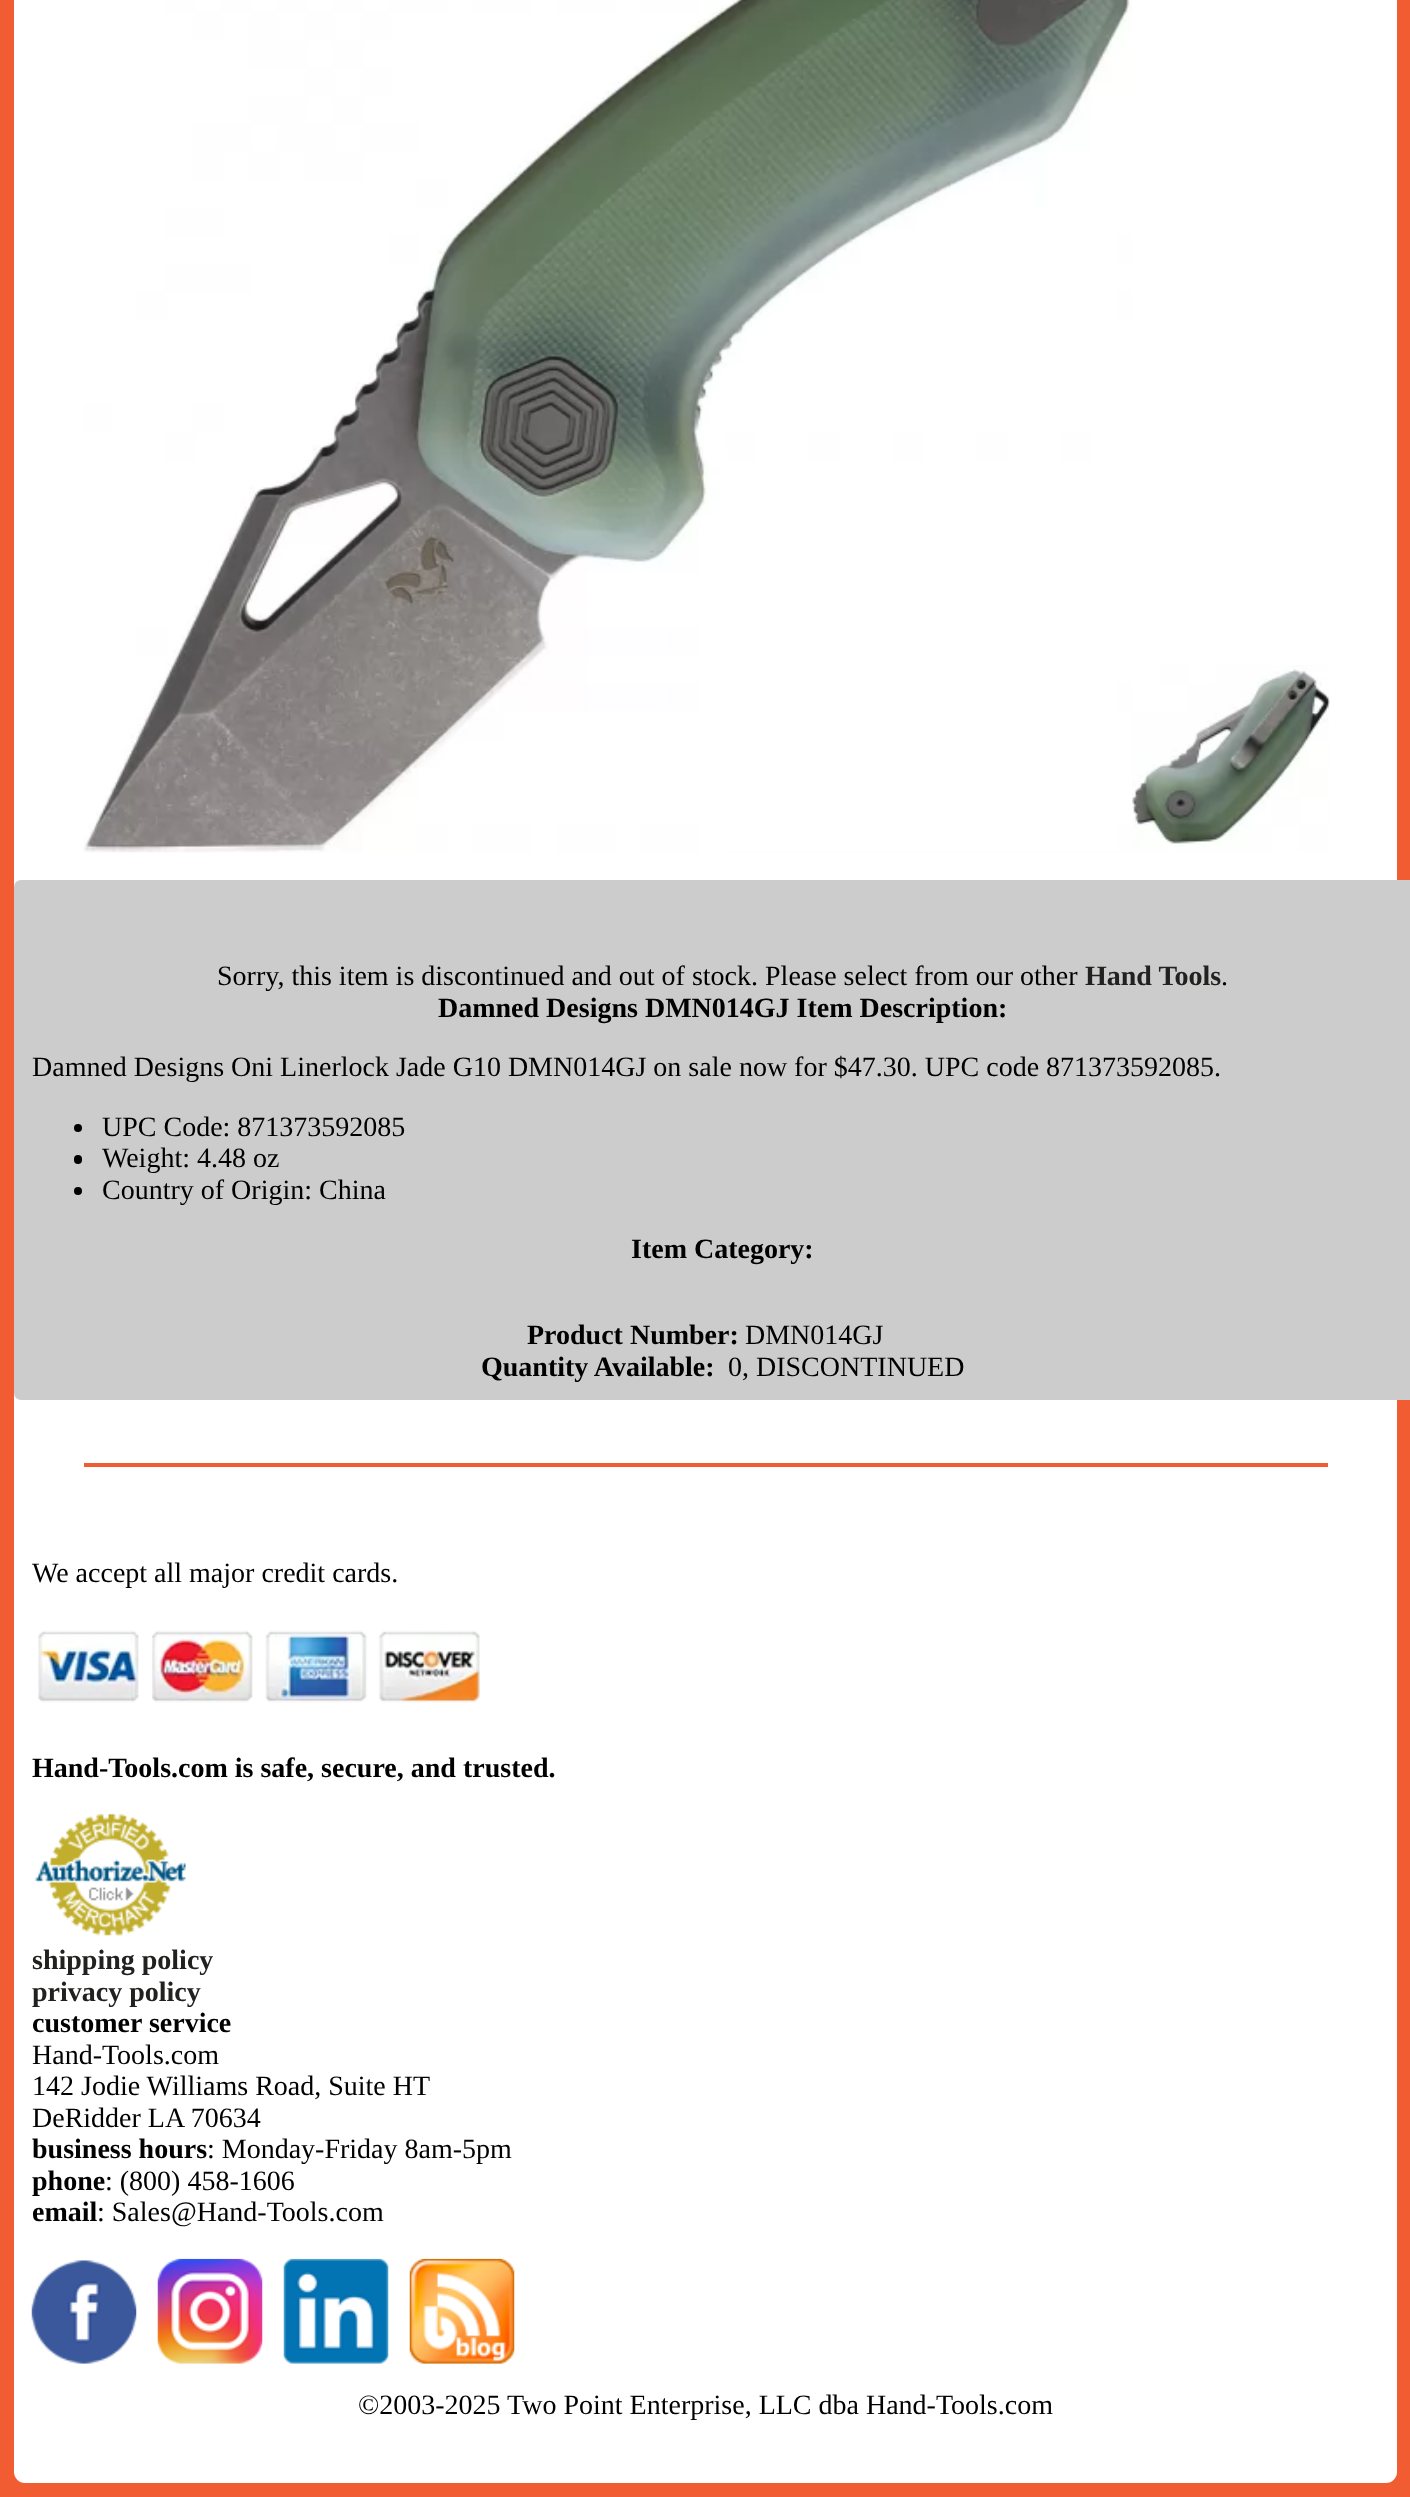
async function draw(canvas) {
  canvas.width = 1410;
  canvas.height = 2497;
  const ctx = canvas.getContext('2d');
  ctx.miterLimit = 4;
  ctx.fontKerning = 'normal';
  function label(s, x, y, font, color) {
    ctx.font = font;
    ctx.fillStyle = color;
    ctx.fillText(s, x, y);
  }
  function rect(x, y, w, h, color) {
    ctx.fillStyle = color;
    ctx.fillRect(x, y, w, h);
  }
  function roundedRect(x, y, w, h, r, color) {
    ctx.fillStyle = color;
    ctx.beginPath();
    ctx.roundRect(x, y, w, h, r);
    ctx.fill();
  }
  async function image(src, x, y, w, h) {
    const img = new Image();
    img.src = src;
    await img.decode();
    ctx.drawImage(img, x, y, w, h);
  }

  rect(0, 0, 1410, 2497, '#f15c32');
  roundedRect(14, -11, 1383, 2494, 11, '#fff');
  await image('assets/img1.png', 83, 0, 1049, 853);
  await image('assets/img2.png', 1132, 665, 198, 187);
  roundedRect(14, 880, 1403, 520, 7, '#ccc');
  label('Sorry, this item is discontinued and out of stock. Please select from our other', 217, 985, '28px Liberation Serif', '#000');
  label('Hand Tools', 1085, 985, 'bold 28px Liberation Serif', '#212120');
  label('.', 1221, 985, '28px Liberation Serif', '#000');
  label('Damned Designs DMN014GJ Item Description:', 438, 1017, 'bold 28px Liberation Serif', '#000');
  label('Damned Designs Oni Linerlock Jade G10 DMN014GJ on sale now for $47.30. UPC code 871373592085.', 32, 1076, '28px Liberation Serif', '#000');
  ctx.beginPath();
  ctx.arc(78, 1128, 4, 0, 2 * Math.PI);
  ctx.fill();
  label('UPC Code: 871373592085', 102, 1136, '28px Liberation Serif', '#000');
  roundedRect(74, 1155, 8, 9, 4, '#000');
  label('Weight: 4.48 oz', 102, 1167, '28px Liberation Serif', '#000');
  ctx.beginPath();
  ctx.arc(78, 1191, 4, 0, 2 * Math.PI);
  ctx.fill();
  label('Country of Origin: China', 102, 1199, '28px Liberation Serif', '#000');
  label('Item Category:', 631, 1258, 'bold 28px Liberation Serif', '#000');
  label('Product Number:', 527, 1344, 'bold 28px Liberation Serif', '#000');
  label('DMN014GJ', 745, 1344, '28px Liberation Serif', '#000');
  label('Quantity Available:', 481, 1376, 'bold 28px Liberation Serif', '#000');
  label('0, DISCONTINUED', 728, 1376, '28px Liberation Serif', '#000');
  rect(84, 1463, 1244, 4, '#f15c32');
  label('We accept all major credit cards.', 32, 1582, '28px Liberation Serif', '#000');
  await image('assets/img3.png', 38, 1630, 442, 73);
  label('Hand-Tools.com is safe, secure, and trusted.', 32, 1777, 'bold 28px Liberation Serif', '#000');
  await image('assets/img4.png', 34, 1813, 152, 123);
  label('shipping policy', 32, 1969, 'bold 28px Liberation Serif', '#212120');
  label('privacy policy', 32, 2001, 'bold 28px Liberation Serif', '#212120');
  label('customer service', 32, 2032, 'bold 28px Liberation Serif', '#000');
  label('Hand-Tools.com', 32, 2064, '28px Liberation Serif', '#000');
  label('142 Jodie Williams Road, Suite HT', 32, 2095, '28px Liberation Serif', '#000');
  label('DeRidder LA 70634', 32, 2127, '28px Liberation Serif', '#000');
  label('business hours', 32, 2158, 'bold 28px Liberation Serif', '#000');
  label(': Monday-Friday 8am-5pm', 207, 2158, '28px Liberation Serif', '#000');
  label('phone', 32, 2190, 'bold 28px Liberation Serif', '#000');
  label(': (800) 458-1606', 105, 2190, '28px Liberation Serif', '#000');
  label('email', 32, 2221, 'bold 28px Liberation Serif', '#000');
  label(': Sales@Hand-Tools.com', 97, 2221, '28px Liberation Serif', '#000');
  await image('assets/img5.png', 31, 2260, 106, 104);
  await image('assets/img6.png', 157, 2258, 106, 106);
  await image('assets/img7.png', 283, 2258, 106, 106);
  await image('assets/img8.png', 409, 2258, 106, 106);
  label('©2003-2025 Two Point Enterprise, LLC dba Hand-Tools.com', 358, 2414, '28px Liberation Serif', '#000');
}

draw(document.querySelector('canvas'));
